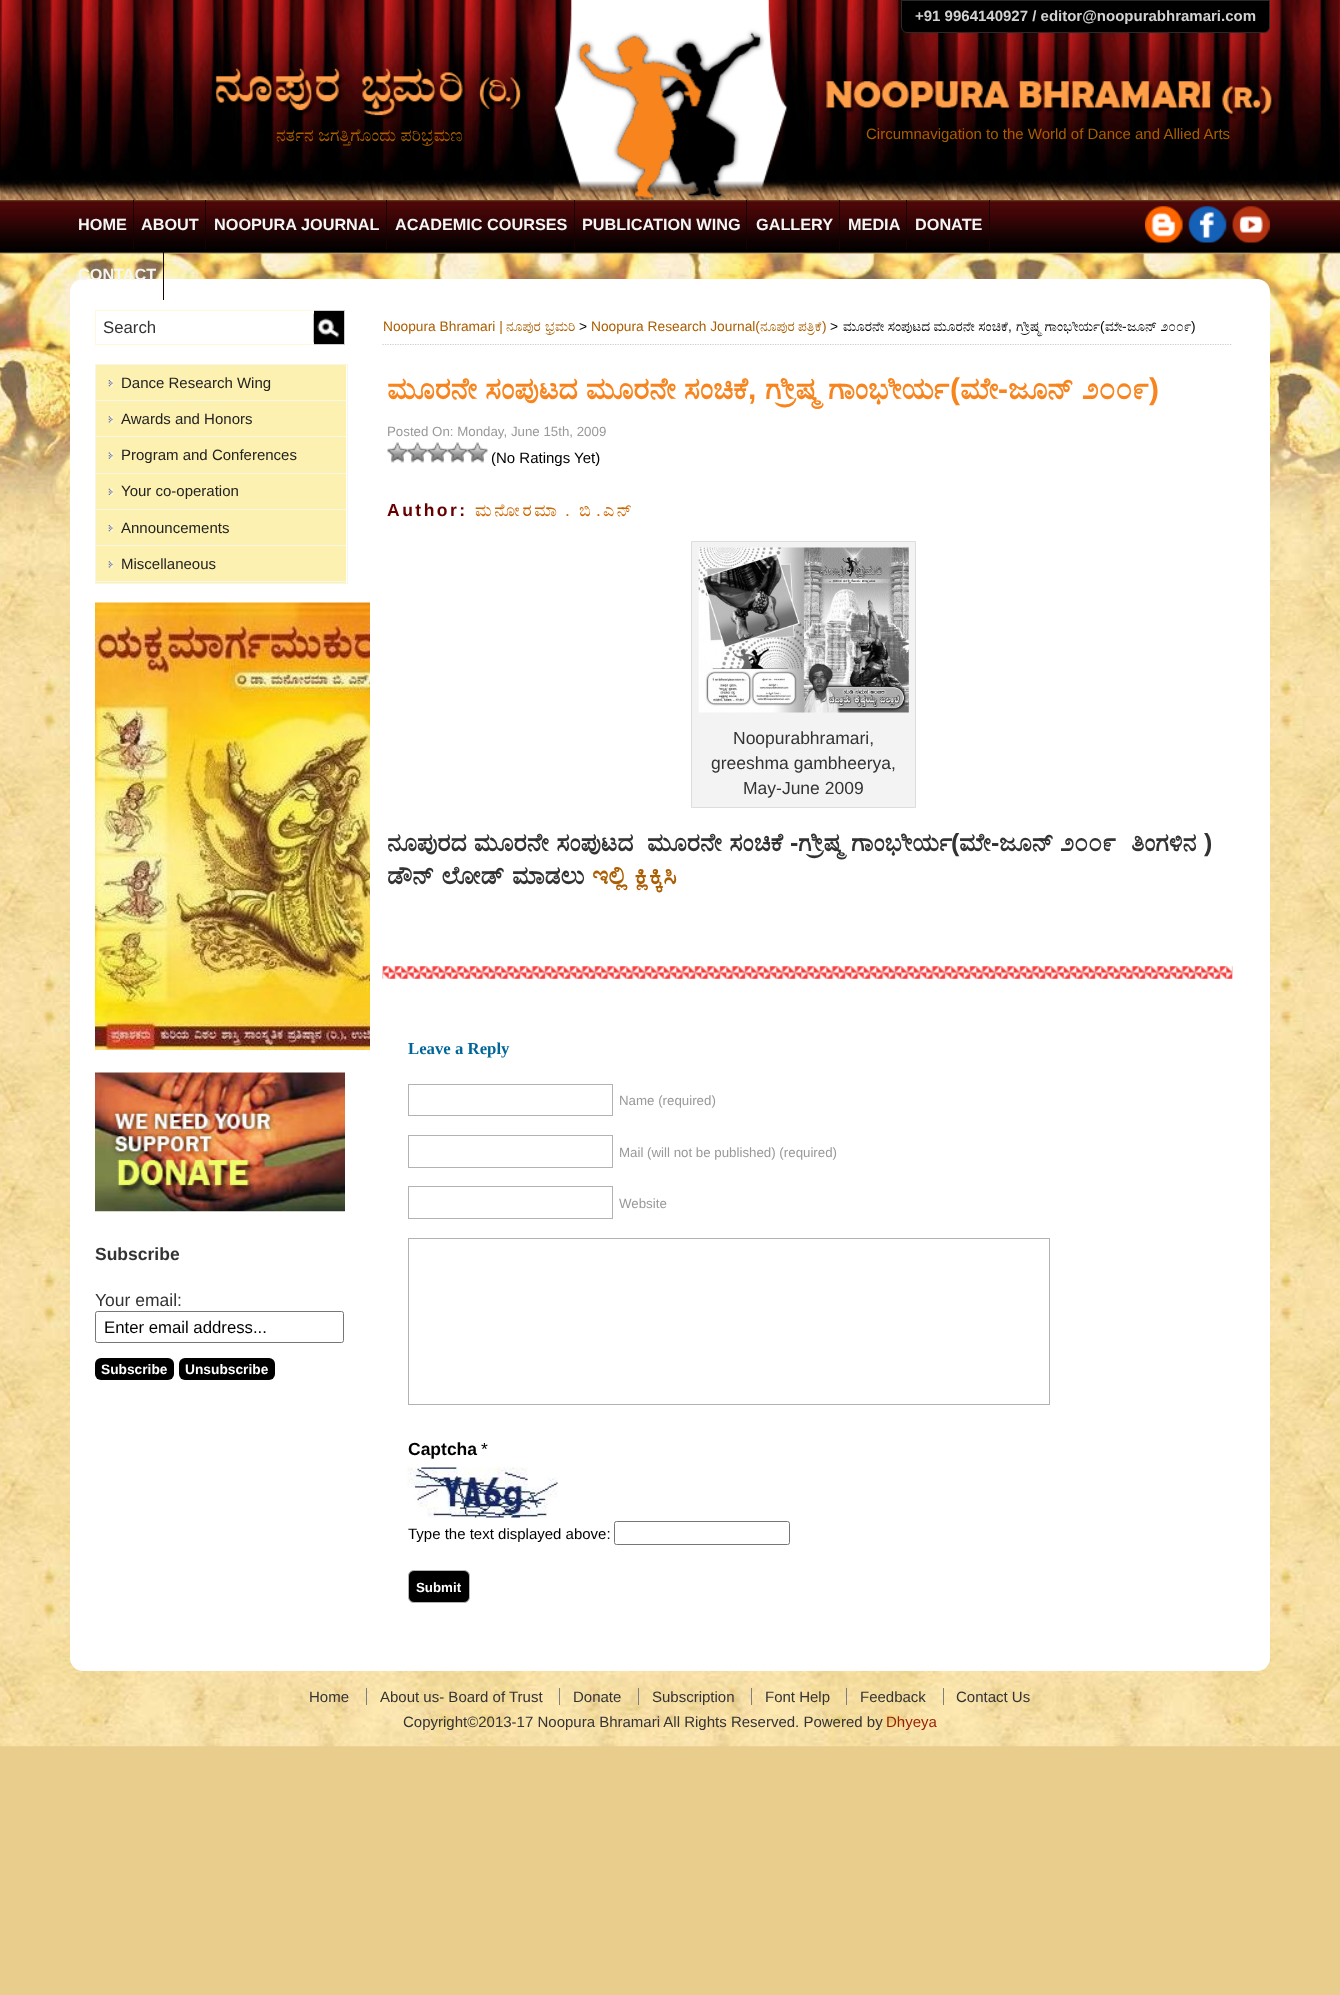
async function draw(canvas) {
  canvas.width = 1340;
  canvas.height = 1995;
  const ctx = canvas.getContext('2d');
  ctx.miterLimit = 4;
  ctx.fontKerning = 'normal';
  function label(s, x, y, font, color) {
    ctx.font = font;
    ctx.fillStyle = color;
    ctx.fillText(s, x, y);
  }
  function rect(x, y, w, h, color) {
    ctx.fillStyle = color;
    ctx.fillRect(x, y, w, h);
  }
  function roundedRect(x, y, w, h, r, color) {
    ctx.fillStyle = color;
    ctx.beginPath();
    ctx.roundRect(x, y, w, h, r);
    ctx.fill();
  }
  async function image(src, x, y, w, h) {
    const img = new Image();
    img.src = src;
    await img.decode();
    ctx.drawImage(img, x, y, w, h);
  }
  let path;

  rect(0, 0, 1340, 1995, '#e8cd8d');
  await image('assets/img1.png', 0, 0, 1340, 200);
  await image('assets/img2.png', 553, 0, 235, 200);
  ctx.fillStyle = '#000';
  ctx.beginPath();
  ctx.roundRect(901.5, 0.5, 368, 32, [0, 0, 5.5, 5.5]);
  ctx.fill();
  ctx.strokeStyle = '#2b2a2a';
  ctx.stroke();
  label('+91 9964140927 / editor@noopurabhramari.com', 915, 21, 'bold 15px Liberation Sans', '#d2d2d2');
  await image('assets/img3.png', 215, 68, 306, 53);
  label('ನರ್ತನ ಜಗತ್ತಿಗೊಂದು ಪರಿಭ್ರಮಣ', 276, 141, '17.5px FreeSerif', '#aa5e01');
  await image('assets/img4.png', 826, 81, 450, 38);
  label('Circumnavigation to the World of Dance and Allied Arts', 866, 139, '15px Liberation Sans', '#aa5e01');
  await image('assets/img5.png', 0, 200, 1340, 54);
  rect(133, 200, 1, 50, '#180202');
  label('HOME', 78, 230, 'bold 16.25px Liberation Sans', '#f5f5f5');
  rect(205, 200, 1, 50, '#180202');
  label('ABOUT', 141, 230, 'bold 16.25px Liberation Sans', '#f5f5f5');
  rect(386, 200, 1, 50, '#180202');
  label('NOOPURA JOURNAL', 214, 230, 'bold 16.25px Liberation Sans', '#f5f5f5');
  rect(574, 200, 1, 50, '#180202');
  label('ACADEMIC COURSES', 395, 230, 'bold 16.25px Liberation Sans', '#f5f5f5');
  rect(746, 200, 1, 50, '#180202');
  label('PUBLICATION WING', 582, 230, 'bold 16.25px Liberation Sans', '#f5f5f5');
  rect(839, 200, 1, 50, '#180202');
  label('GALLERY', 756, 230, 'bold 16.25px Liberation Sans', '#f5f5f5');
  rect(906, 200, 1, 50, '#180202');
  label('MEDIA', 848, 230, 'bold 16.25px Liberation Sans', '#f5f5f5');
  rect(989, 200, 1, 50, '#180202');
  label('DONATE', 915, 230, 'bold 16.25px Liberation Sans', '#f5f5f5');
  await image('assets/img7.png', 0, 253, 1340, 1494);
  await image('assets/img8.png', 0, 253, 1340, 327);
  roundedRect(70, 279, 1200, 1392, 13, '#fff');
  rect(163, 250, 1, 50, '#180202');
  label('CONTACT', 78, 280, 'bold 16.25px Liberation Sans', '#f5f5f5');
  await image('assets/img6.png', 1145, 206, 125, 37);
  rect(95, 310, 219, 1, '#fff8db');
  rect(95, 344, 219, 1, '#fff8db');
  rect(95, 310, 1, 35, '#fff8db');
  label('Search', 103, 333, '16.75px Liberation Sans', '#333');
  rect(314, 311, 30, 33, '#000');
  rect(314, 310, 31, 1, '#ccc');
  rect(344, 310, 1, 35, '#ccc');
  rect(314, 344, 31, 1, '#ccc');
  await image('assets/img9.png', 313, 313, 26, 30);
  ctx.strokeStyle = '#f7f7e4';
  ctx.strokeRect(95.5, 364.5, 252, 219);
  rect(96, 365, 250, 35, '#fcf1b0');
  await image('assets/img10.png', 108, 380, 5, 7);
  rect(96, 400, 250, 1, '#f7f7e4');
  label('Dance Research Wing', 121, 388, '15px Liberation Sans', '#232222');
  rect(96, 401, 250, 72, '#fcf1b0');
  await image('assets/img11.png', 108, 416, 5, 7);
  rect(96, 436, 250, 1, '#f7f7e4');
  label('Awards and Honors', 121, 424, '15px Liberation Sans', '#232222');
  await image('assets/img12.png', 108, 452, 5, 7);
  rect(96, 473, 250, 1, '#f7f7e4');
  label('Program and Conferences', 121, 460, '15px Liberation Sans', '#232222');
  rect(96, 474, 250, 35, '#fcf1b0');
  await image('assets/img13.png', 108, 488, 5, 7);
  rect(96, 509, 250, 1, '#f7f7e4');
  label('Your co-operation', 121, 496, '15px Liberation Sans', '#232222');
  rect(96, 510, 250, 35, '#fcf1b0');
  await image('assets/img10.png', 108, 525, 5, 7);
  rect(96, 545, 250, 1, '#f7f7e4');
  label('Announcements', 121, 533, '15px Liberation Sans', '#232222');
  rect(96, 546, 250, 37, '#fcf1b0');
  await image('assets/img11.png', 108, 561, 5, 7);
  rect(96, 581, 250, 1, '#f7f7e4');
  label('Miscellaneous', 121, 569, '15px Liberation Sans', '#232222');
  await image('assets/img14.png', 95, 602, 275, 448);
  await image('assets/img15.png', 95, 1072, 250, 140);
  label('Subscribe', 95, 1260, 'bold 17.5px Liberation Sans', '#333');
  label('Your email:', 95, 1306, '17.5px Liberation Sans', '#333');
  ctx.beginPath();
  ctx.roundRect(95.5, 1311.5, 248, 31, 2);
  ctx.strokeStyle = '#767676';
  ctx.stroke();
  label('Enter email address...', 104, 1333, '16.75px Liberation Sans', '#000');
  roundedRect(95, 1358, 79, 22, 6, '#000');
  label('Subscribe', 101, 1374, 'bold 13.75px Liberation Sans', '#fff');
  roundedRect(179, 1358, 96, 22, 6, '#000');
  label('Unsubscribe', 185, 1374, 'bold 13.75px Liberation Sans', '#fff');
  path = new Path2D('M382.5 344.5H1232.5');
  ctx.strokeStyle = '#ccc';
  ctx.lineWidth = 1.2;
  ctx.setLineDash([1.25, 1.25]);
  ctx.stroke(path);
  label('Noopura Bhramari |', 383, 331, '13.75px Liberation Sans', '#aa5e01');
  label('Noopura Research Journal(', 591, 331, '13.75px Liberation Sans', '#aa5e01');
  label('ಪತ್ರಿಕೆ', 798, 331, '13.75px FreeSerif', '#aa5e01');
  label(')', 822, 331, '13.75px Liberation Sans', '#aa5e01');
  label('ಮೂರನೇ ಸಂಪುಟದ ಮೂರನೇ ಸಂಚಿಕೆ', 843, 331, '13.75px FreeSerif', '#000');
  label('(', 1100, 331, '13.75px Liberation Sans', '#000');
  label('ಮೇ', 1105, 331, '13.75px FreeSerif', '#000');
  label('ನೂಪುರ', 506, 331, '13.75px FreeSerif', '#aa5e01');
  label('ಭ್ರಮರಿ', 545, 331, '13.75px FreeSerif', '#aa5e01');
  label('>', 579, 331, '13.75px Liberation Sans', '#000');
  label('ನೂಪುರ', 760, 331, '13.75px FreeSerif', '#aa5e01');
  label('>', 830, 331, '13.75px Liberation Sans', '#000');
  label(',', 1008, 331, '13.75px Liberation Sans', '#000');
  label('ಗ್ರೀಷ್ಮ ಗಾಂಭೀರ್ಯ', 1016, 331, '13.75px FreeSerif', '#000');
  label('-', 1122, 331, '13.75px Liberation Sans', '#000');
  label('ಜೂನ್ ೨೦೦೯', 1127, 331, '13.75px FreeSerif', '#000');
  label(')', 1191, 331, '13.75px Liberation Sans', '#000');
  ctx.wordSpacing = '0.5px';
  label('ಮೂರನೇ ಸಂಪುಟದ ಮೂರನೇ ಸಂಚಿಕೆ', 387, 399, 'bold 30px FreeSerif', '#f8841d');
  ctx.wordSpacing = '0px';
  label(',', 748, 399, 'bold 30px Liberation Sans', '#f8841d');
  ctx.wordSpacing = '0.5px';
  label('ಗ್ರೀಷ್ಮ ಗಾಂಭೀರ್ಯ', 765, 399, 'bold 30px FreeSerif', '#f8841d');
  ctx.wordSpacing = '0px';
  label('(', 950, 399, 'bold 30px Liberation Sans', '#f8841d');
  label(')', 1149, 399, 'bold 30px Liberation Sans', '#f8841d');
  label('ಮೇ', 960, 399, 'bold 30px FreeSerif', '#f8841d');
  label('-', 998, 399, 'bold 30px Liberation Sans', '#f8841d');
  ctx.wordSpacing = '0.5px';
  label('ಜೂನ್ ೨೦೦೯', 1008, 399, 'bold 30px FreeSerif', '#f8841d');
  ctx.wordSpacing = '0px';
  label('Posted On: Monday, June 15th, 2009', 387, 436, '13.3px Liberation Sans', '#999');
  await image('assets/img16.png', 387, 442, 21, 21);
  await image('assets/img17.png', 407, 442, 21, 21);
  await image('assets/img18.png', 427, 442, 21, 21);
  await image('assets/img18.png', 447, 442, 21, 21);
  await image('assets/img18.png', 467, 442, 21, 21);
  label('(No Ratings Yet)', 491, 463, '15px Liberation Sans', '#000');
  ctx.letterSpacing = '2.5px';
  label('Author:', 387, 516, 'bold 17.5px Liberation Sans', '#600');
  label('ಮನೋರಮಾ', 475, 516, '17.5px FreeSerif', '#c60');
  label('.', 565, 516, '17.5px Liberation Sans', '#c60');
  label('ಬಿ', 579, 516, '17.5px FreeSerif', '#c60');
  label('.', 596, 516, '17.5px Liberation Sans', '#c60');
  label('ಎನ್', 603, 516, '17.5px FreeSerif', '#c60');
  ctx.fillStyle = '#f3f3f3';
  ctx.beginPath();
  ctx.rect(691.5, 541.5, 224, 266);
  ctx.fill();
  ctx.strokeStyle = '#ddd';
  ctx.lineWidth = 1;
  ctx.setLineDash([]);
  ctx.stroke();
  await image('assets/img19.png', 698, 547, 211, 166);
  ctx.letterSpacing = '0px';
  label('Noopurabhramari,', 733, 744, '17.5px Liberation Sans', '#333');
  label('greeshma gambheerya,', 711, 769, '17.5px Liberation Sans', '#333');
  label('May-June 2009', 743, 794, '17.5px Liberation Sans', '#333');
  ctx.wordSpacing = '1px';
  label('ನೂಪುರದ ಮೂರನೇ ಸಂಪುಟದ', 387, 851, 'bold 25px FreeSerif', '#333');
  label('ಮೂರನೇ ಸಂಚಿಕೆ', 647, 851, 'bold 25px FreeSerif', '#333');
  ctx.wordSpacing = '0px';
  label('-', 790, 851, 'bold 25px Liberation Sans', '#333');
  ctx.wordSpacing = '1px';
  label('ಗ್ರೀಷ್ಮ ಗಾಂಭೀರ್ಯ', 798, 851, 'bold 25px FreeSerif', '#333');
  ctx.wordSpacing = '0px';
  label('(', 951, 851, 'bold 25px Liberation Sans', '#333');
  label(')', 1204, 851, 'bold 25px Liberation Sans', '#333');
  label('ಮೇ', 959, 851, 'bold 25px FreeSerif', '#333');
  label('-', 991, 851, 'bold 25px Liberation Sans', '#333');
  label('ಜೂನ್ ೨೦೦೯', 999, 851, 'bold 25px FreeSerif', '#333');
  label('ತಿಂಗಳಿನ', 1131, 851, 'bold 25px FreeSerif', '#333');
  ctx.wordSpacing = '1px';
  label('ಡೌನ್ ಲೋಡ್ ಮಾಡಲು', 387, 884, 'bold 25px FreeSerif', '#333');
  label('ಇಲ್ಲಿ ಕ್ಲಿಕ್ಕಿಸಿ', 592, 884, 'bold 25px FreeSerif', '#aa5e01');
  await image('assets/img20.png', 382, 966, 851, 13);
  ctx.wordSpacing = '0px';
  label('Leave a Reply', 408, 1054, 'bold 16.75px Liberation Serif', '#069');
  ctx.strokeStyle = '#b2b2b2';
  ctx.strokeRect(408.5, 1084.5, 204, 31);
  label('Name (required)', 619, 1105, '13.3px Liberation Sans', '#999');
  ctx.strokeRect(408.5, 1135.5, 204, 32);
  label('Mail (will not be published) (required)', 619, 1157, '13.3px Liberation Sans', '#999');
  ctx.strokeRect(408.5, 1186.5, 204, 32);
  label('Website', 619, 1208, '13.3px Liberation Sans', '#999');
  ctx.strokeRect(408.5, 1238.5, 641, 166);
  label('Captcha', 408, 1455, 'bold 17.5px Liberation Sans', '#000');
  label('*', 481, 1455, '17.5px Liberation Sans', '#000');
  await image('assets/img21.png', 407, 1467, 151, 51);
  label('Type the text displayed above:', 408, 1539, '15px Liberation Sans', '#000');
  ctx.beginPath();
  ctx.roundRect(614.5, 1521.5, 175, 23, 2);
  ctx.strokeStyle = '#767676';
  ctx.stroke();
  ctx.beginPath();
  ctx.roundRect(408.5, 1570.5, 61, 32, 5.5);
  ctx.fill();
  ctx.strokeStyle = '#b2b2b2';
  ctx.stroke();
  label('Submit', 416, 1592, 'bold 13.3px Liberation Sans', '#fff');
  label('Home', 309, 1702, '15px Liberation Sans', '#333');
  label('About us- Board of Trust', 380, 1702, '15px Liberation Sans', '#333');
  rect(366, 1688, 1, 17, '#7e7e7e');
  label('Donate', 573, 1702, '15px Liberation Sans', '#333');
  rect(559, 1688, 1, 17, '#7e7e7e');
  label('Subscription', 652, 1702, '15px Liberation Sans', '#333');
  rect(638, 1688, 1, 17, '#7e7e7e');
  label('Font Help', 765, 1702, '15px Liberation Sans', '#333');
  rect(751, 1688, 1, 17, '#7e7e7e');
  label('Feedback', 860, 1702, '15px Liberation Sans', '#333');
  rect(846, 1688, 1, 17, '#7e7e7e');
  label('Contact Us', 956, 1702, '15px Liberation Sans', '#333');
  rect(943, 1688, 1, 17, '#7e7e7e');
  label('Copyright©2013-17 Noopura Bhramari All Rights Reserved. Powered by', 403, 1727, '15px Liberation Sans', '#333');
  label('Dhyeya', 886, 1727, '15px Liberation Sans', '#981d00');
}

draw(document.querySelector('canvas'));
